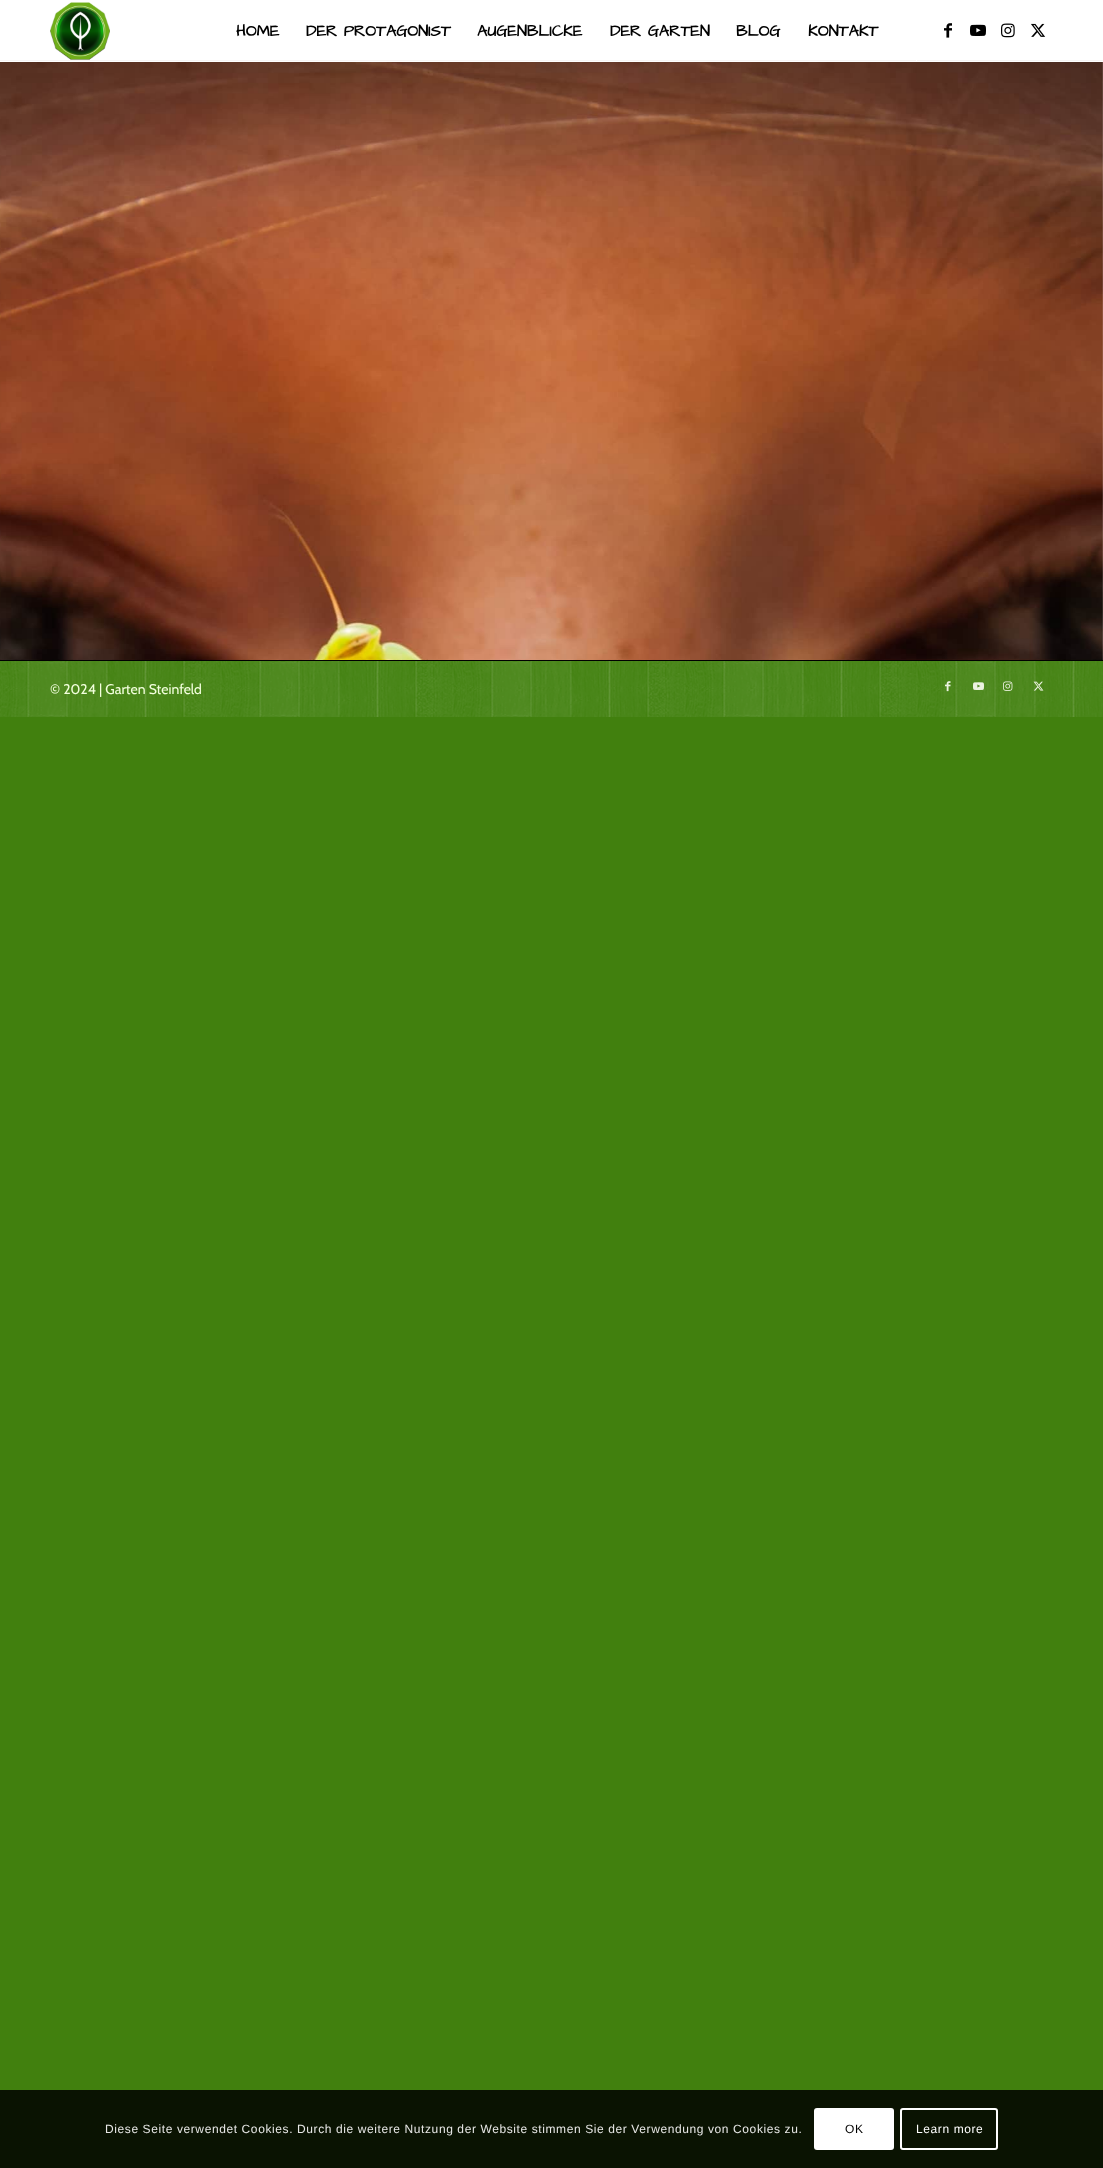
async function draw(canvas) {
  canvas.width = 1103;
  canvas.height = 2168;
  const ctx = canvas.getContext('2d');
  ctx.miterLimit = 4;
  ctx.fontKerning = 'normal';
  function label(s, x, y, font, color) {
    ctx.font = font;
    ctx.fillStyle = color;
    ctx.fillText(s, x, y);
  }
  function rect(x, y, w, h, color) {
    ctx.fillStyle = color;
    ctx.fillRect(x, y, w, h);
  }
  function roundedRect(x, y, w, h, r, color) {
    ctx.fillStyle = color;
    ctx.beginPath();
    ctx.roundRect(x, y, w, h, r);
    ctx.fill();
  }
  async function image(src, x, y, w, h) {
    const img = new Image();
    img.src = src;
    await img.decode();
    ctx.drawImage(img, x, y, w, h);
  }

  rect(0, 0, 1103, 2168, '#41800e');
  rect(0, 0, 1103, 660, '#fff');
  await image('assets/img6.png', 0, 60, 1103, 600);
  rect(0, 61, 1103, 1, '#fff');
  await image('assets/img1.png', 50, 2, 60, 58);
  rect(0, 60, 1103, 1, '#fffffff2');
  rect(916, 60, 1, 1, '#fff');
  label('HOME', 236, 36, 'bold 16px Architects Daughter', '#000');
  label('DER PROTAGONIST', 306, 36, 'bold 16px Architects Daughter', '#000');
  label('AUGENBLICKE', 477, 36, 'bold 16px Architects Daughter', '#000');
  label('DER GARTEN', 610, 36, 'bold 16px Architects Daughter', '#000');
  label('BLOG', 736, 36, 'bold 16px Architects Daughter', '#000');
  label('KONTAKT', 808, 36, 'bold 16px Architects Daughter', '#000');
  await image('assets/img2.png', 944, 23, 8, 15);
  await image('assets/img3.png', 970, 24, 16, 12);
  await image('assets/img4.png', 1001, 23, 14, 15);
  await image('assets/img5.png', 1031, 23, 15, 14);
  await image('assets/img7.png', 0, 661, 1103, 56);
  rect(0, 660, 1103, 1, '#000');
  label('© 2024 | Garten Steinfeld', 50, 694, '14px Cabin', '#f3ffde');
  await image('assets/img8.png', 945, 681, 6, 11);
  await image('assets/img9.png', 973, 682, 11, 8);
  await image('assets/img10.png', 1003, 681, 10, 10);
  await image('assets/img11.png', 1033, 681, 11, 10);
  rect(0, 2090, 1103, 78, '#0a1302');
  ctx.letterSpacing = '0.6px';
  label('Diese Seite verwendet Cookies. Durch die weitere Nutzung der Website stimmen Sie der Verwendung von Cookies zu.', 105, 2133, '12px Liberation Sans', '#e7e7e6');
  roundedRect(814, 2108, 80, 42, 3, '#fff');
  label('OK', 845, 2133, '12px Liberation Sans', '#000');
  ctx.beginPath();
  ctx.roundRect(901, 2109, 96, 40, 2);
  ctx.strokeStyle = '#fff';
  ctx.lineWidth = 2;
  ctx.stroke();
  label('Learn more', 916, 2133, '12px Liberation Sans', '#fff');
}

draw(document.querySelector('canvas'));
